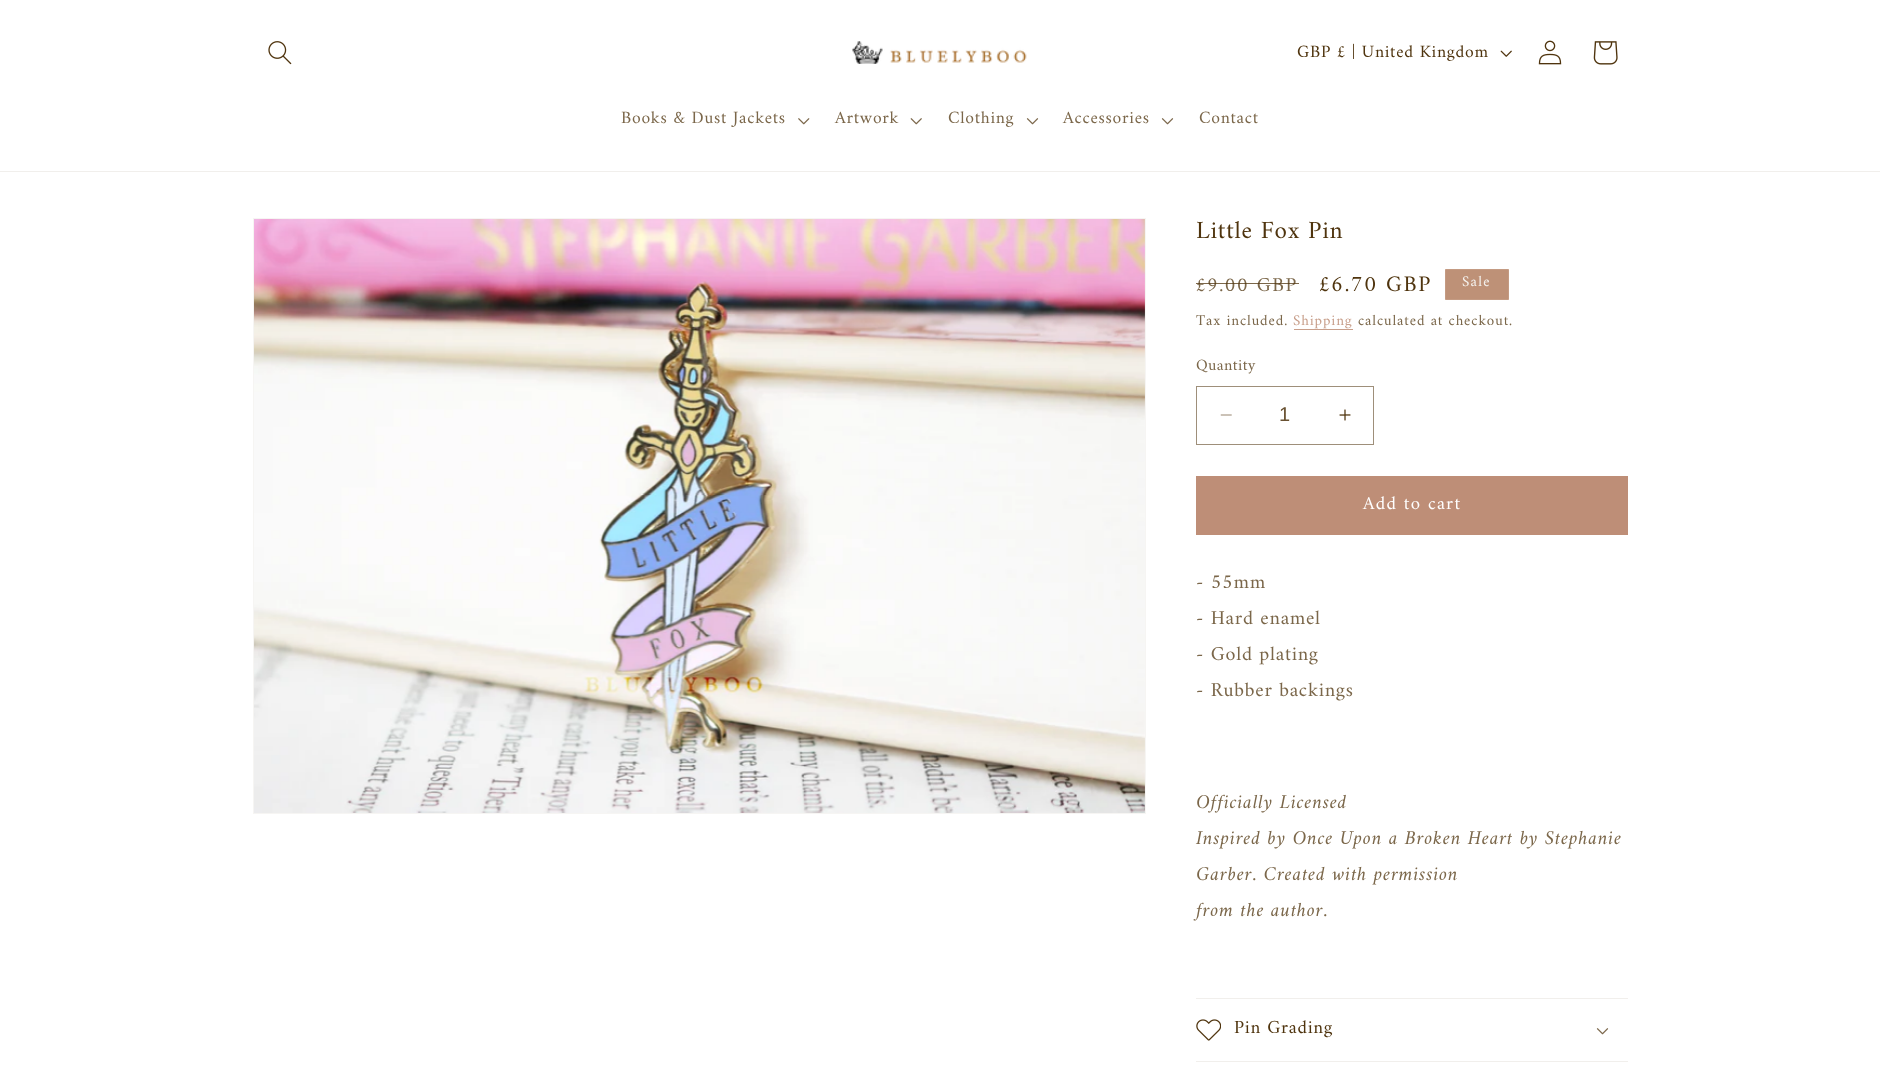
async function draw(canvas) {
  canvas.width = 1880;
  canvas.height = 1073;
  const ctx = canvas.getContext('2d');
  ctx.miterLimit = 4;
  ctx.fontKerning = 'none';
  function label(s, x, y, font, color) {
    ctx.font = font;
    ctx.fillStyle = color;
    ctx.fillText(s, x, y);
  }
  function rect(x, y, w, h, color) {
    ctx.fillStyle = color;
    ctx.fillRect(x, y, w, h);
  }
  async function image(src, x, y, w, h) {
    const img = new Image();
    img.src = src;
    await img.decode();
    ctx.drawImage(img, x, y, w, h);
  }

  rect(0, 0, 1880, 1073, '#fff');
  rect(0, 171, 1880, 1, '#f1efec');
  await image('assets/img1.png', 268, 41, 24, 24);
  await image('assets/img2.png', 852, 41, 175, 23);
  ctx.letterSpacing = '0.75px';
  label('GBP £ | United Kingdom', 1297, 57, '17.5px Amiri', '#4f340e');
  await image('assets/img3.png', 1500, 50, 12, 7);
  await image('assets/img4.png', 1538, 40, 24, 25);
  await image('assets/img5.png', 1593, 41, 25, 24);
  label('Books & Dust Jackets', 621, 123, '17.5px Amiri', '#7b674a');
  await image('assets/img6.png', 798, 118, 12, 7);
  label('Artwork', 835, 123, '17.5px Amiri', '#7b674a');
  await image('assets/img7.png', 910, 118, 12, 7);
  label('Clothing', 948, 123, '17.5px Amiri', '#7b674a');
  await image('assets/img8.png', 1026, 118, 13, 7);
  label('Accessories', 1063, 123, '17.5px Amiri', '#7b674a');
  await image('assets/img8.png', 1161, 118, 13, 7);
  label('Contact', 1199, 123, '17.5px Amiri', '#7b674a');
  ctx.strokeStyle = '#f6f5f3';
  ctx.strokeRect(253.5, 218.5, 892, 595);
  await image('assets/img9.png', 254, 219, 891, 594);
  label('Little Fox Pin', 1196, 238, '25px Amiri', '#4f340e');
  ctx.letterSpacing = '1.6px';
  label('£9.00 GBP', 1196, 291, '20px Amiri', '#7b674a');
  rect(1196, 283, 103, 1, '#4f340ebf');
  label('£6.70 GBP', 1319, 291, '22.5px Amiri', '#4f340e');
  ctx.fillStyle = '#be9177';
  ctx.beginPath();
  ctx.rect(1445.5, 269.5, 63, 30);
  ctx.fill();
  ctx.strokeStyle = '#c49b83';
  ctx.stroke();
  ctx.letterSpacing = '1.25px';
  label('Sale', 1462, 286, '15px Amiri', '#f5f3ef');
  ctx.letterSpacing = '0.9px';
  label('Tax included.', 1196, 325, '15px Amiri', '#7b674a');
  label('Shipping', 1293, 325, '15px Amiri', '#c89f8b');
  rect(1294, 329, 59, 1, '#c89f8b');
  label('calculated at checkout.', 1358, 325, '15px Amiri', '#7b674a');
  ctx.letterSpacing = '0.5px';
  label('Quantity', 1196, 370, '16px Amiri', '#7b674a');
  await image('assets/img10.png', 1220, 414, 12, 2);
  await image('assets/img11.png', 1339, 409, 12, 12);
  ctx.strokeStyle = '#9e8f7a';
  ctx.strokeRect(1196.5, 386.5, 177, 58);
  ctx.letterSpacing = '0px';
  label('1', 1279, 421, '20px Liberation Sans', '#695232');
  rect(1196, 476, 432, 59, '#be8e77');
  ctx.letterSpacing = '1.25px';
  label('Add to cart', 1363, 509, '18.75px Amiri', '#fff');
  ctx.letterSpacing = '0.75px';
  label('- 55mm', 1196, 588, '20px Amiri', '#7b674a');
  label('- Hard enamel', 1196, 624, '20px Amiri', '#7b674a');
  label('- Gold plating', 1196, 660, '20px Amiri', '#7b674a');
  label('- Rubber backings', 1196, 696, '20px Amiri', '#7b674a');
  label('Officially Licensed', 1196, 808, 'italic 20px Amiri', '#7b674a');
  label('Inspired by Once Upon a Broken Heart by Stephanie', 1196, 844, 'italic 20px Amiri', '#7b674a');
  label('Garber. Created with permission', 1196, 880, 'italic 20px Amiri', '#7b674a');
  label('from the author.', 1196, 916, 'italic 20px Amiri', '#7b674a');
  rect(1196, 998, 432, 1, '#f1efec');
  rect(1196, 1061, 432, 1, '#f1efec');
  await image('assets/img12.png', 1196, 1019, 25, 22);
  label('Pin Grading', 1234, 1033, '18.75px Amiri', '#4f340e');
  await image('assets/img8.png', 1596, 1028, 13, 7);
}

draw(document.querySelector('canvas'));
